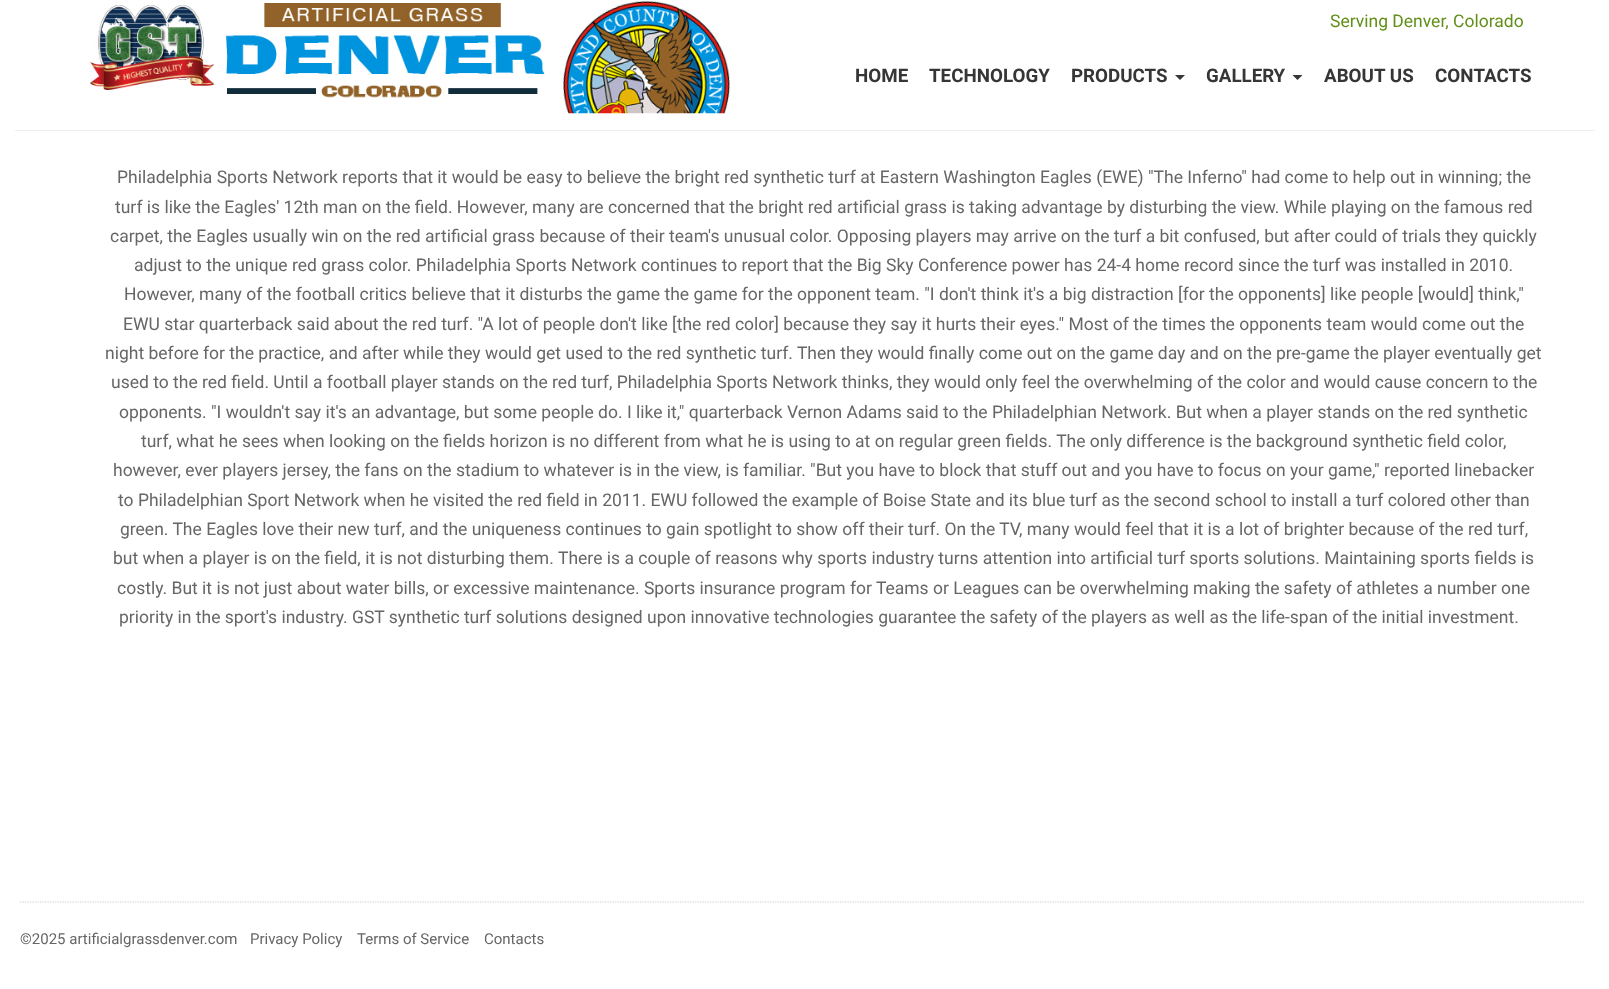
async function draw(canvas) {
  canvas.width = 1609;
  canvas.height = 989;
  const ctx = canvas.getContext('2d');
  ctx.miterLimit = 4;
  ctx.fontKerning = 'normal';
  function label(s, x, y, font, color) {
    ctx.font = font;
    ctx.fillStyle = color;
    ctx.fillText(s, x, y);
  }
  function rect(x, y, w, h, color) {
    ctx.fillStyle = color;
    ctx.fillRect(x, y, w, h);
  }
  async function image(src, x, y, w, h) {
    const img = new Image();
    img.src = src;
    await img.decode();
    ctx.drawImage(img, x, y, w, h);
  }
  let path;

  rect(0, 0, 1609, 989, '#fff');
  await image('assets/img1.png', 90, 0, 641, 114);
  label('Serving Denver, Colorado', 1330, 27, '17.5px Roboto', '#618f18');
  label('HOME', 855, 82, 'bold 18.75px Heebo', '#363636');
  label('TECHNOLOGY', 929, 82, 'bold 18.75px Heebo', '#363636');
  label('PRODUCTS', 1071, 82, 'bold 18.75px Heebo', '#363636');
  path = new Path2D('M1175 75H1185L1180 80Z');
  ctx.fill(path);
  label('GALLERY', 1206, 82, 'bold 18.75px Heebo', '#363636');
  path = new Path2D('M1292.5 75H1302.5L1297.5 80Z');
  ctx.fill(path);
  label('ABOUT US', 1324, 82, 'bold 18.75px Heebo', '#363636');
  label('CONTACTS', 1435, 82, 'bold 18.75px Heebo', '#363636');
  rect(15, 130, 1580, 1, '#eee');
  label('Philadelphia Sports Network reports that it would be easy to believe the bright red synthetic turf at Eastern Washington Eagles (EWE) "The Inferno" had come to help out in winning; the', 117, 183, '17.5px Roboto', '#666');
  label('turf is like the Eagles\' 12th man on the field. However, many are concerned that the bright red artificial grass is taking advantage by disturbing the view. While playing on the famous red', 115, 213, '17.5px Roboto', '#666');
  label('carpet, the Eagles usually win on the red artificial grass because of their team\'s unusual color. Opposing players may arrive on the turf a bit confused, but after could of trials they quickly', 110, 242, '17.5px Roboto', '#666');
  label('adjust to the unique red grass color. Philadelphia Sports Network continues to report that the Big Sky Conference power has 24-4 home record since the turf was installed in 2010.', 134, 271, '17.5px Roboto', '#666');
  label('However, many of the football critics believe that it disturbs the game the game for the opponent team. "I don\'t think it\'s a big distraction [for the opponents] like people [would] think,"', 124, 300, '17.5px Roboto', '#666');
  label('EWU star quarterback said about the red turf. "A lot of people don\'t like [the red color] because they say it hurts their eyes." Most of the times the opponents team would come out the', 123, 330, '17.5px Roboto', '#666');
  label('night before for the practice, and after while they would get used to the red synthetic turf. Then they would finally come out on the game day and on the pre-game the player eventually get', 105, 359, '17.5px Roboto', '#666');
  label('used to the red field. Until a football player stands on the red turf, Philadelphia Sports Network thinks, they would only feel the overwhelming of the color and would cause concern to the', 111, 388, '17.5px Roboto', '#666');
  label('opponents. "I wouldn\'t say it\'s an advantage, but some people do. I like it," quarterback Vernon Adams said to the Philadelphian Network. But when a player stands on the red synthetic', 119, 418, '17.5px Roboto', '#666');
  label('turf, what he sees when looking on the fields horizon is no different from what he is using to at on regular green fields. The only difference is the background synthetic field color,', 141, 447, '17.5px Roboto', '#666');
  label('however, ever players jersey, the fans on the stadium to whatever is in the view, is familiar. "But you have to block that stuff out and you have to focus on your game," reported linebacker', 113, 476, '17.5px Roboto', '#666');
  label('to Philadelphian Sport Network when he visited the red field in 2011. EWU followed the example of Boise State and its blue turf as the second school to install a turf colored other than', 118, 506, '17.5px Roboto', '#666');
  label('green. The Eagles love their new turf, and the uniqueness continues to gain spotlight to show off their turf. On the TV, many would feel that it is a lot of brighter because of the red turf,', 120, 535, '17.5px Roboto', '#666');
  label('but when a player is on the field, it is not disturbing them.', 113, 564, '17.5px Roboto', '#666');
  label('There is a couple of reasons why sports industry turns attention into artificial turf sports solutions. Maintaining sports fields is', 558, 564, '17.5px Roboto', '#666');
  label('costly. But it is not just about water bills, or excessive maintenance. Sports insurance program for Teams or Leagues can be overwhelming making the safety of athletes a number one', 117, 594, '17.5px Roboto', '#666');
  label('priority in the sport\'s industry. GST synthetic turf solutions designed upon innovative technologies guarantee the safety of the players as well as the life-span of the initial investment.', 119, 623, '17.5px Roboto', '#666');
  path = new Path2D('M20 902H1585');
  ctx.strokeStyle = '#cbcbcb';
  ctx.lineWidth = 1.2;
  ctx.setLineDash([1.25, 1.25]);
  ctx.stroke(path);
  label('©2025 artificialgrassdenver.com', 20, 944, '15px Roboto', '#666');
  label('Privacy Policy', 250, 944, '15px Roboto', '#666');
  label('Terms of Service', 357, 944, '15px Roboto', '#666');
  label('Contacts', 484, 944, '15px Roboto', '#666');
}

draw(document.querySelector('canvas'));
